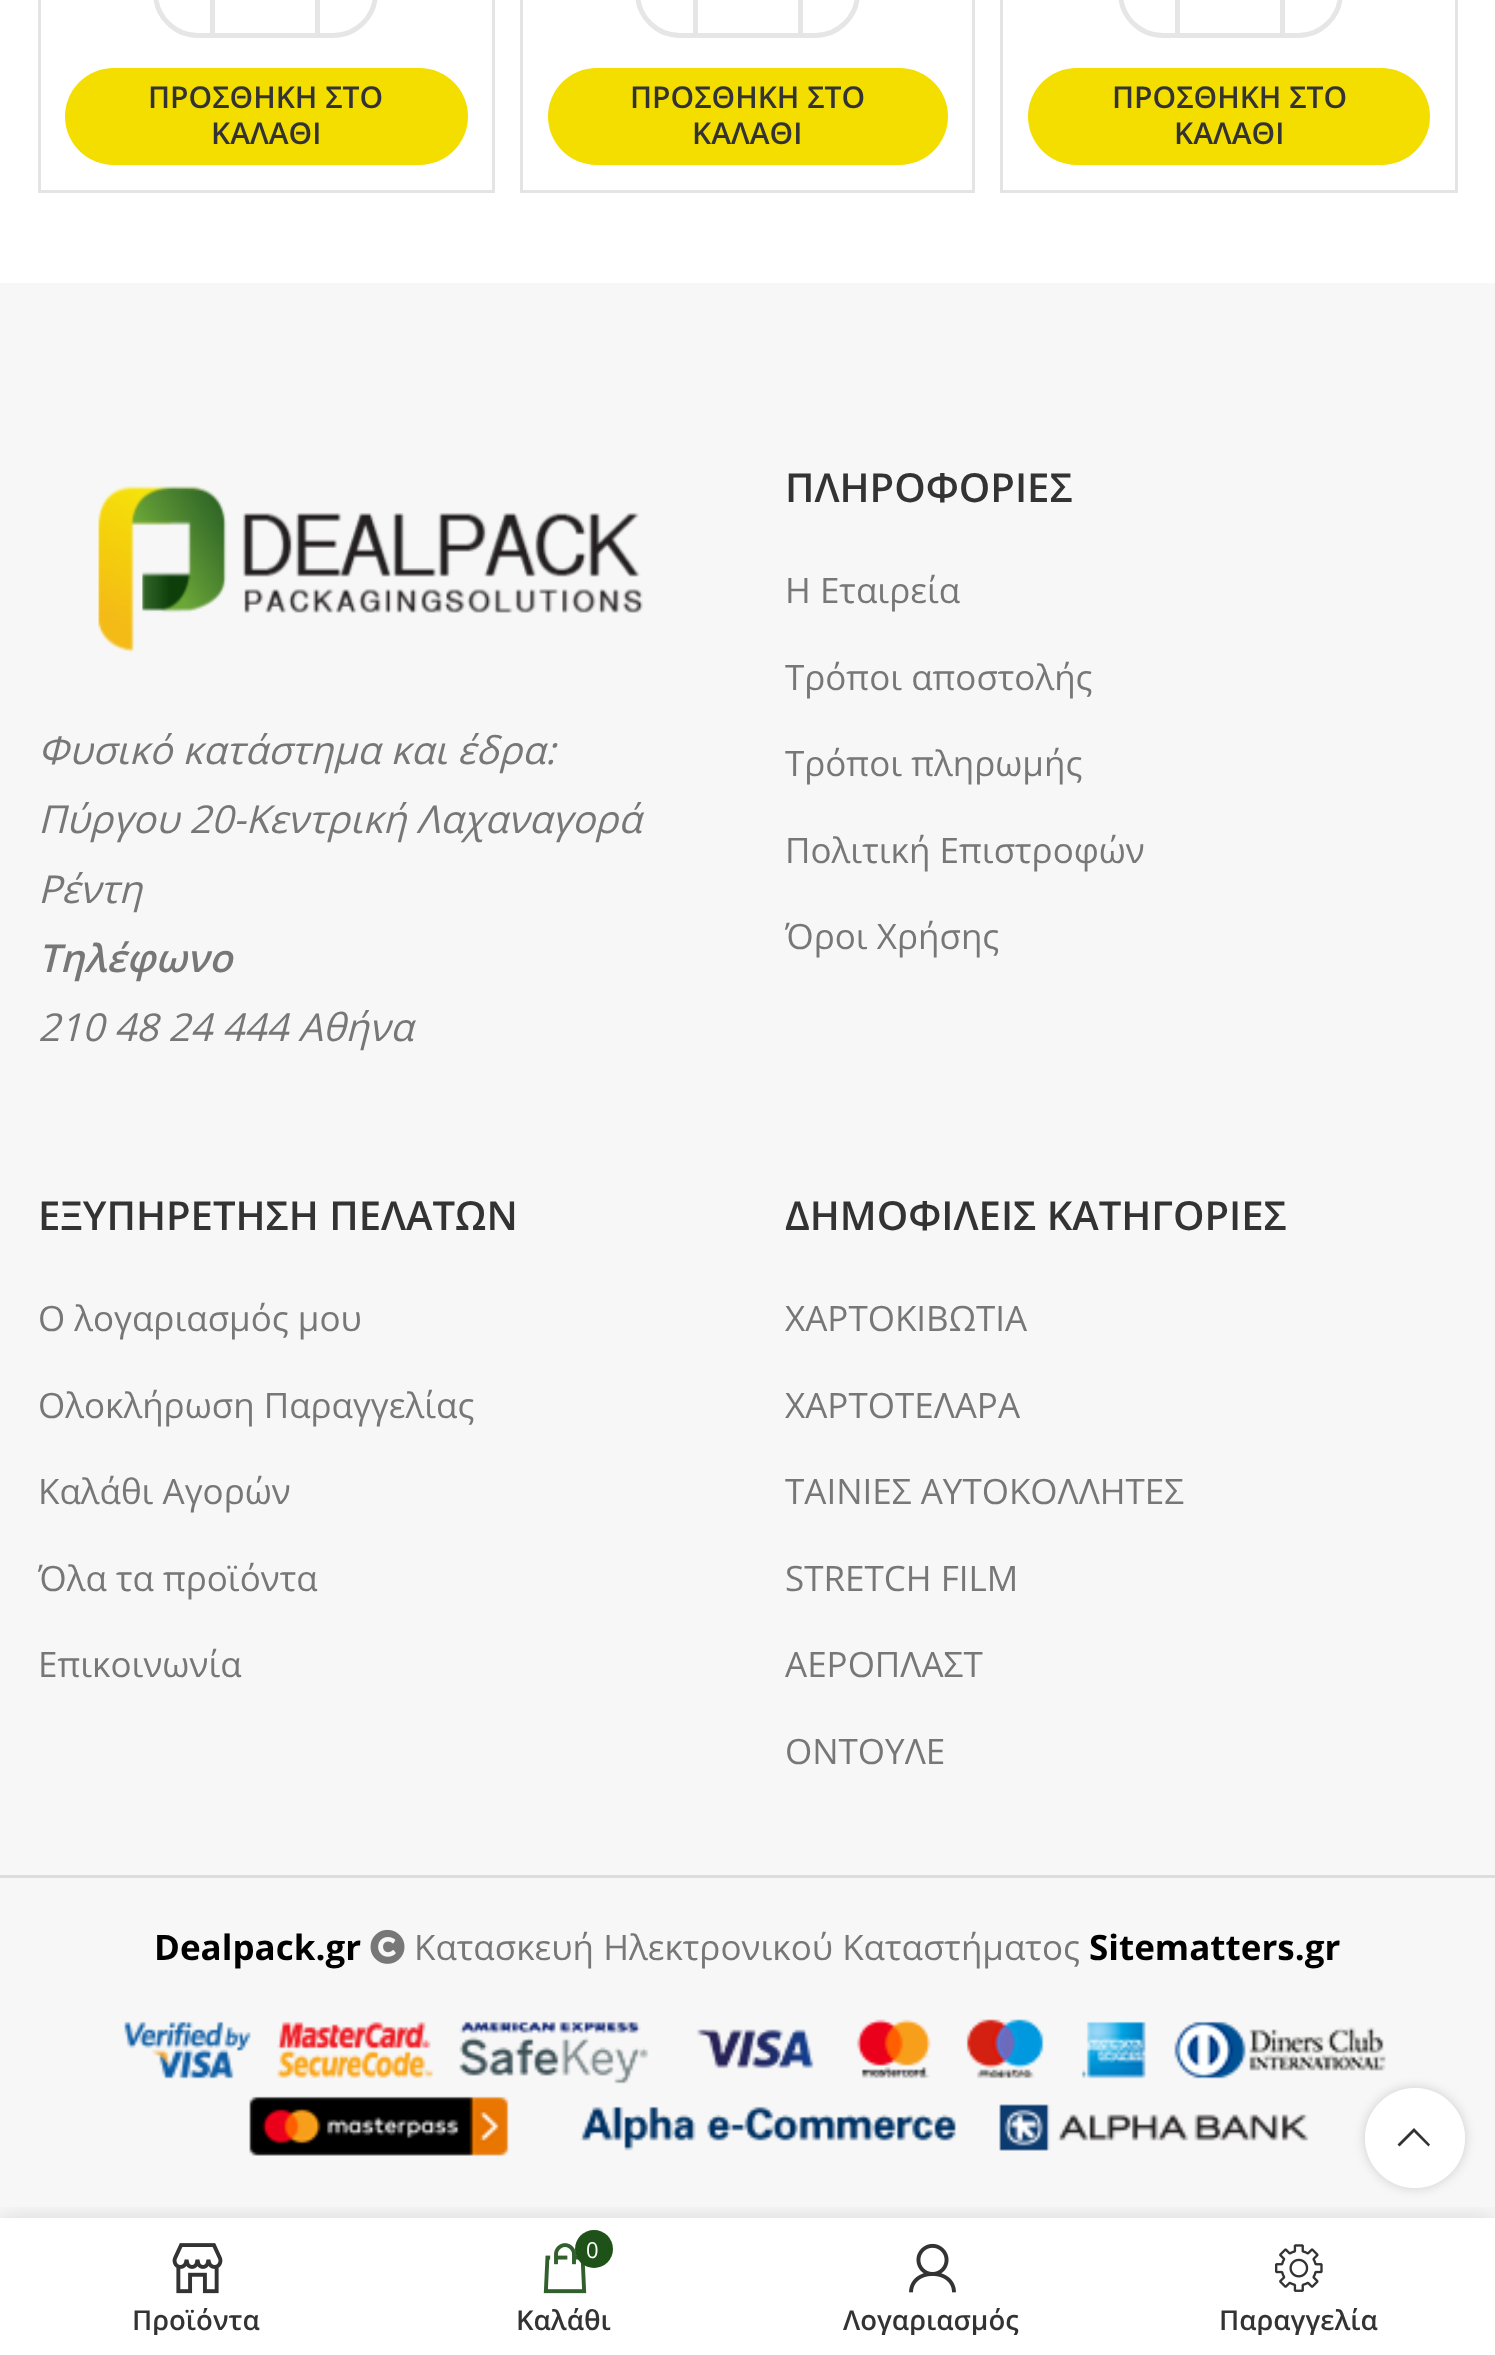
async function draw(canvas) {
  canvas.width = 1495;
  canvas.height = 2355;
  const ctx = canvas.getContext('2d');
  ctx.miterLimit = 4;
  ctx.fontKerning = 'normal';
  function label(s, x, y, font, color) {
    ctx.font = font;
    ctx.fillStyle = color;
    ctx.fillText(s, x, y);
  }
  function rect(x, y, w, h, color) {
    ctx.fillStyle = color;
    ctx.fillRect(x, y, w, h);
  }
  function roundedRect(x, y, w, h, r, color) {
    ctx.fillStyle = color;
    ctx.beginPath();
    ctx.roundRect(x, y, w, h, r);
    ctx.fill();
  }
  async function image(src, x, y, w, h) {
    const img = new Image();
    img.src = src;
    await img.decode();
    ctx.drawImage(img, x, y, w, h);
  }
  let path;

  rect(0, 0, 1495, 2355, '#fff');
  ctx.strokeStyle = '#e4e4e4';
  ctx.lineWidth = 3;
  ctx.strokeRect(39.5, -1.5, 454, 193);
  path = new Path2D('M198-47.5H212.5V35.5H198C174.5 35.5 155.5 16.5 155.5-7V-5C155.5-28.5 174.5-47.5 198-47.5Z');
  ctx.strokeStyle = '#e6e6e6';
  ctx.lineWidth = 5;
  ctx.stroke(path);
  rect(215, 33, 100, 5, '#e6e6e6');
  path = new Path2D('M317.5-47.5H333C356.5-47.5 375.5-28.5 375.5-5V-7C375.5 16.5 356.5 35.5 333 35.5H317.5Z');
  ctx.stroke(path);
  roundedRect(65, 68, 403, 97, 48.5, '#f4de00');
  label('ΠΡΟΣΘΗΚΗ ΣΤΟ', 148, 108, '600 30px Open Sans', '#333');
  label('ΚΑΛΑΘΙ', 211, 144, '600 30px Open Sans', '#333');
  ctx.strokeStyle = '#e4e4e4';
  ctx.lineWidth = 3;
  ctx.strokeRect(521.5, -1.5, 452, 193);
  path = new Path2D('M680-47.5H695.5V35.5H680C656.5 35.5 637.5 16.5 637.5-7V-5C637.5-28.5 656.5-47.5 680-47.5Z');
  ctx.strokeStyle = '#e6e6e6';
  ctx.lineWidth = 5;
  ctx.stroke(path);
  rect(698, 33, 100, 5, '#e6e6e6');
  path = new Path2D('M800.5-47.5H815C838.5-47.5 857.5-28.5 857.5-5V-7C857.5 16.5 838.5 35.5 815 35.5H800.5Z');
  ctx.stroke(path);
  roundedRect(548, 68, 400, 97, 48.5, '#f4de00');
  label('ΠΡΟΣΘΗΚΗ ΣΤΟ', 630, 108, '600 30px Open Sans', '#333');
  label('ΚΑΛΑΘΙ', 692, 144, '600 30px Open Sans', '#333');
  ctx.strokeStyle = '#e4e4e4';
  ctx.lineWidth = 3;
  ctx.strokeRect(1001.5, -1.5, 455, 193);
  path = new Path2D('M1163-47.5H1177.5V35.5H1163C1139.5 35.5 1120.5 16.5 1120.5-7V-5C1120.5-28.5 1139.5-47.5 1163-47.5Z');
  ctx.strokeStyle = '#e6e6e6';
  ctx.lineWidth = 5;
  ctx.stroke(path);
  rect(1180, 33, 100, 5, '#e6e6e6');
  path = new Path2D('M1282.5-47.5H1298C1321.5-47.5 1340.5-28.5 1340.5-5V-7C1340.5 16.5 1321.5 35.5 1298 35.5H1282.5Z');
  ctx.stroke(path);
  roundedRect(1028, 68, 402, 97, 48.5, '#f4de00');
  label('ΠΡΟΣΘΗΚΗ ΣΤΟ', 1112, 108, '600 30px Open Sans', '#333');
  label('ΚΑΛΑΘΙ', 1174, 144, '600 30px Open Sans', '#333');
  rect(0, 283, 1495, 1935, '#f7f7f7');
  await image('assets/img1.png', 98, 486, 545, 167);
  label('Φυσικό κατάστημα και έδρα:', 38, 764, 'italic 38.5px Open Sans', '#777');
  label('Πύργου 20-Κεντρική Λαχαναγορά', 38, 833, 'italic 38.5px Open Sans', '#777');
  label('Ρέντη', 38, 903, 'italic 38.5px Open Sans', '#777');
  label('Τηλέφωνο', 38, 972, 'italic 600 38.5px Open Sans', '#777');
  label('210 48 24 444 Αθήνα', 38, 1041, 'italic 38.5px Open Sans', '#777');
  label('ΠΛΗΡΟΦΟΡΙΕΣ', 785, 502, '600 40px Open Sans', '#333');
  label('Η Εταιρεία', 785, 603, '35px Open Sans', '#777');
  label('Tρόποι αποστολής', 785, 690, '35px Open Sans', '#777');
  label('Τρόποι πληρωμής', 785, 776, '35px Open Sans', '#777');
  label('Πολιτική Επιστροφών', 785, 863, '35px Open Sans', '#777');
  label('Όροι Χρήσης', 785, 949, '35px Open Sans', '#777');
  label('ΕΞΥΠΗΡΕΤΗΣΗ ΠΕΛΑΤΩΝ', 38, 1230, '600 40px Open Sans', '#333');
  label('Ο λογαριασμός μου', 38, 1331, '35px Open Sans', '#777');
  label('Ολοκλήρωση Παραγγελίας', 38, 1418, '35px Open Sans', '#777');
  label('Καλάθι Αγορών', 38, 1504, '35px Open Sans', '#777');
  label('Όλα τα προϊόντα', 38, 1591, '35px Open Sans', '#777');
  label('Επικοινωνία', 38, 1677, '35px Open Sans', '#777');
  label('ΔΗΜΟΦΙΛΕΙΣ ΚΑΤΗΓΟΡΙΕΣ', 785, 1230, '600 40px Open Sans', '#333');
  label('ΧΑΡΤΟΚΙΒΩΤΙΑ', 785, 1331, '35px Open Sans', '#777');
  label('ΧΑΡΤΟΤΕΛΑΡΑ', 785, 1418, '35px Open Sans', '#777');
  label('ΤΑΙΝΙΕΣ ΑΥΤΟΚΟΛΛΗΤΕΣ', 785, 1504, '35px Open Sans', '#777');
  label('STRETCH FILM', 785, 1591, '35px Open Sans', '#777');
  label('ΑΕΡΟΠΛΑΣΤ', 785, 1677, '35px Open Sans', '#777');
  label('ΟΝΤΟΥΛΕ', 785, 1764, '35px Open Sans', '#777');
  rect(0, 1875, 1495, 3, '#ddd');
  label('Dealpack.gr', 154, 1960, 'bold 35px Open Sans', '#000');
  await image('assets/img2.png', 370, 1929, 35, 35);
  label('Kατασκευή Ηλεκτρονικού Καταστήματος', 414, 1960, '35px Open Sans', '#777');
  label('Sitematters.gr', 1089, 1960, 'bold 35px Open Sans', '#000');
  await image('assets/img3.png', 124, 2019, 1262, 137);
  ctx.save();
  path = new Path2D('M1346 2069H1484V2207H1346ZM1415 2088C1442.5 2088 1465 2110.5 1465 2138C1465 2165.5 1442.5 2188 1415 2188C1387.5 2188 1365 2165.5 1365 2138C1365 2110.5 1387.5 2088 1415 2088Z');
  ctx.clip(path, 'evenodd');
  ctx.fillStyle = '#0000002b';
  ctx.filter = 'blur(6px)';
  ctx.beginPath();
  ctx.roundRect(1365, 2088, 100, 100, 50);
  ctx.fill();
  ctx.filter = 'none';
  ctx.restore();
  ctx.fillStyle = '#ffffffe6';
  ctx.beginPath();
  ctx.arc(1415, 2138, 50, 0, 2 * Math.PI);
  ctx.fill();
  ctx.fillStyle = '#333';
  path = new Path2D('M1428.5 2146.5L1430 2144.5L1414 2128L1397.5 2144.5L1399.5 2146.5L1414 2132Z');
  ctx.fill(path);
  ctx.save();
  ctx.beginPath();
  ctx.rect(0, 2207, 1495, 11);
  ctx.clip();
  ctx.fillStyle = '#0000001f';
  ctx.filter = 'blur(11px)';
  ctx.beginPath();
  ctx.rect(0, 2218, 1495, 137);
  ctx.fill();
  ctx.filter = 'none';
  ctx.restore();
  await image('assets/img4.png', 172, 2243, 51, 51);
  ctx.save();
  ctx.beginPath();
  ctx.rect(38, 2303, 317, 32);
  ctx.clip();
  label('Προϊόντα', 132, 2330, '600 27.5px Open Sans', '#333');
  ctx.restore();
  await image('assets/img5.png', 543, 2243, 44, 51);
  ctx.fillStyle = '#1f5219';
  ctx.beginPath();
  ctx.arc(594, 2249, 19, 0, 2 * Math.PI);
  ctx.fill();
  label('0', 586, 2258, '22px Open Sans', '#fff');
  label('Καλάθι', 516, 2330, '600 27.5px Open Sans', '#333');
  await image('assets/img6.png', 909, 2243, 47, 50);
  ctx.save();
  ctx.beginPath();
  ctx.rect(773, 2303, 317, 32);
  ctx.clip();
  label('Λογαριασμός', 843, 2330, '600 27.5px Open Sans', '#333');
  ctx.restore();
  await image('assets/img7.png', 1275, 2244, 48, 48);
  ctx.save();
  ctx.beginPath();
  ctx.rect(1140, 2303, 318, 32);
  ctx.clip();
  label('Παραγγελία', 1219, 2330, '600 27.5px Open Sans', '#333');
  ctx.restore();
}

draw(document.querySelector('canvas'));
